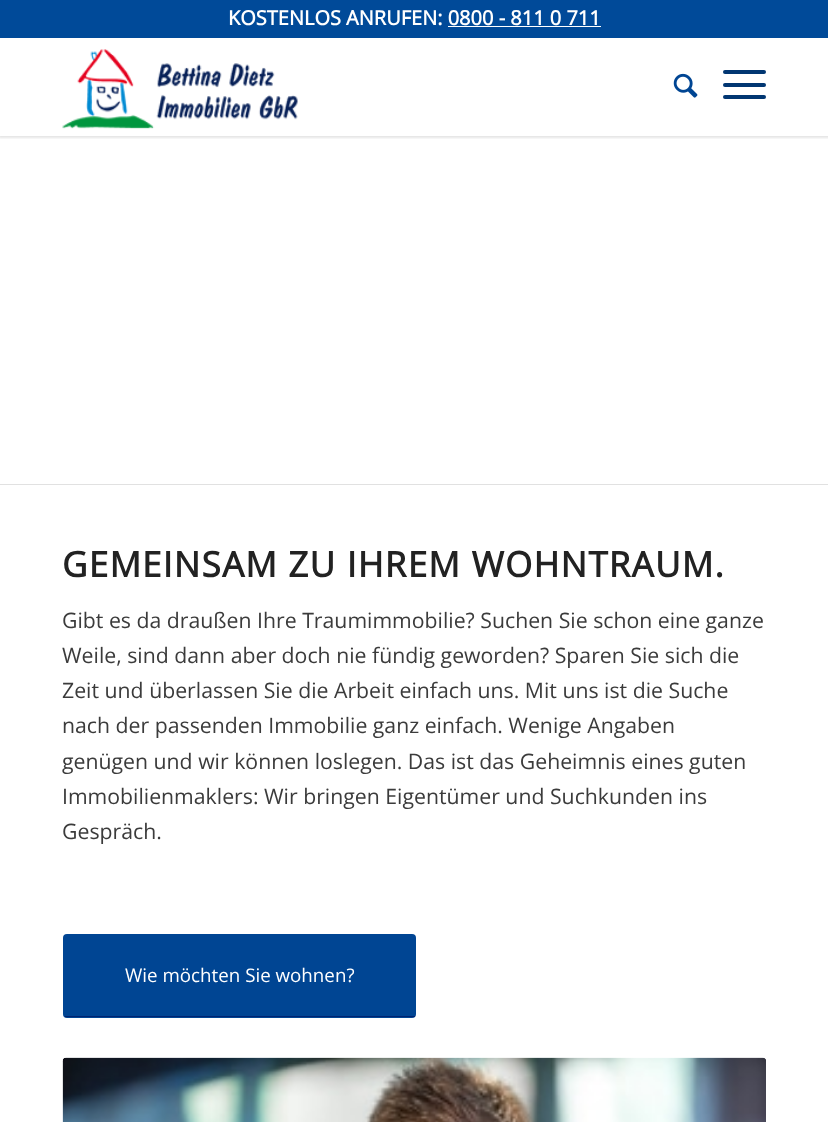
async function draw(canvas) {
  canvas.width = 828;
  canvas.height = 1122;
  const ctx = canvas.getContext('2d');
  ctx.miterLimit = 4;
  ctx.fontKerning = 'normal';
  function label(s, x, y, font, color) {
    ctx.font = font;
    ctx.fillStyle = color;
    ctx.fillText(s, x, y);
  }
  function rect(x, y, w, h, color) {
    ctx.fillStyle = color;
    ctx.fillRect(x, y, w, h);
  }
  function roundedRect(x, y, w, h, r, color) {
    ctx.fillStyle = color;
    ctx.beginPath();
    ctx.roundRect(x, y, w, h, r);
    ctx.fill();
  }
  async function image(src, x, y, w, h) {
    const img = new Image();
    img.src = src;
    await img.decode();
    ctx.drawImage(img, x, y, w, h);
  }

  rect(0, 0, 828, 1122, '#fff');
  ctx.save();
  ctx.beginPath();
  ctx.rect(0, 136, 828, 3);
  ctx.clip();
  ctx.fillStyle = '#0000001a';
  ctx.filter = 'blur(1px)';
  ctx.beginPath();
  ctx.rect(-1, -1, 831, 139);
  ctx.fill();
  ctx.filter = 'none';
  ctx.restore();
  rect(0, 0, 828, 38, '#004a99');
  label('KOSTENLOS ANRUFEN: 0800 - 811 0 711', 228, 25, 'bold 20px Open Sans', '#fff');
  rect(448, 26, 153, 1, '#fff');
  await image('assets/img1.png', 62, 49, 236, 80);
  await image('assets/img2.png', 673, 73, 25, 25);
  roundedRect(723, 83, 43, 4, 2, '#013672');
  roundedRect(723, 70, 43, 4, 2, '#013672');
  roundedRect(723, 95, 43, 4, 2, '#013672');
  rect(0, 484, 828, 1, '#e1e1e1');
  ctx.letterSpacing = '1.25px';
  label('GEMEINSAM ZU IHREM WOHNTRAUM.', 62, 577, 'bold 35px Open Sans', '#222');
  ctx.letterSpacing = '0px';
  label('Gibt es da draußen Ihre Traumimmobilie? Suchen Sie schon eine ganze', 62, 628, '21.25px Open Sans', '#3b3b3b');
  label('Weile, sind dann aber doch nie fündig geworden? Sparen Sie sich die', 62, 663, '21.25px Open Sans', '#3b3b3b');
  label('Zeit und überlassen Sie die Arbeit einfach uns. Mit uns ist die Suche', 62, 698, '21.25px Open Sans', '#3b3b3b');
  label('nach der passenden Immobilie ganz einfach. Wenige Angaben', 62, 733, '21.25px Open Sans', '#3b3b3b');
  label('genügen und wir können loslegen. Das ist das Geheimnis eines guten', 62, 769, '21.25px Open Sans', '#3b3b3b');
  label('Immobilienmaklers: Wir bringen Eigentümer und Suchkunden ins', 62, 804, '21.25px Open Sans', '#3b3b3b');
  label('Gespräch.', 62, 839, '21.25px Open Sans', '#3b3b3b');
  roundedRect(63, 934, 353, 84, 4, '#004593');
  rect(65, 1016, 350, 1, '#002371');
  label('Wie möchten Sie wohnen?', 125, 982, '18.75px Open Sans', '#fff');
  await image('assets/img3.png', 62, 1057, 704, 65);
}

draw(document.querySelector('canvas'));
